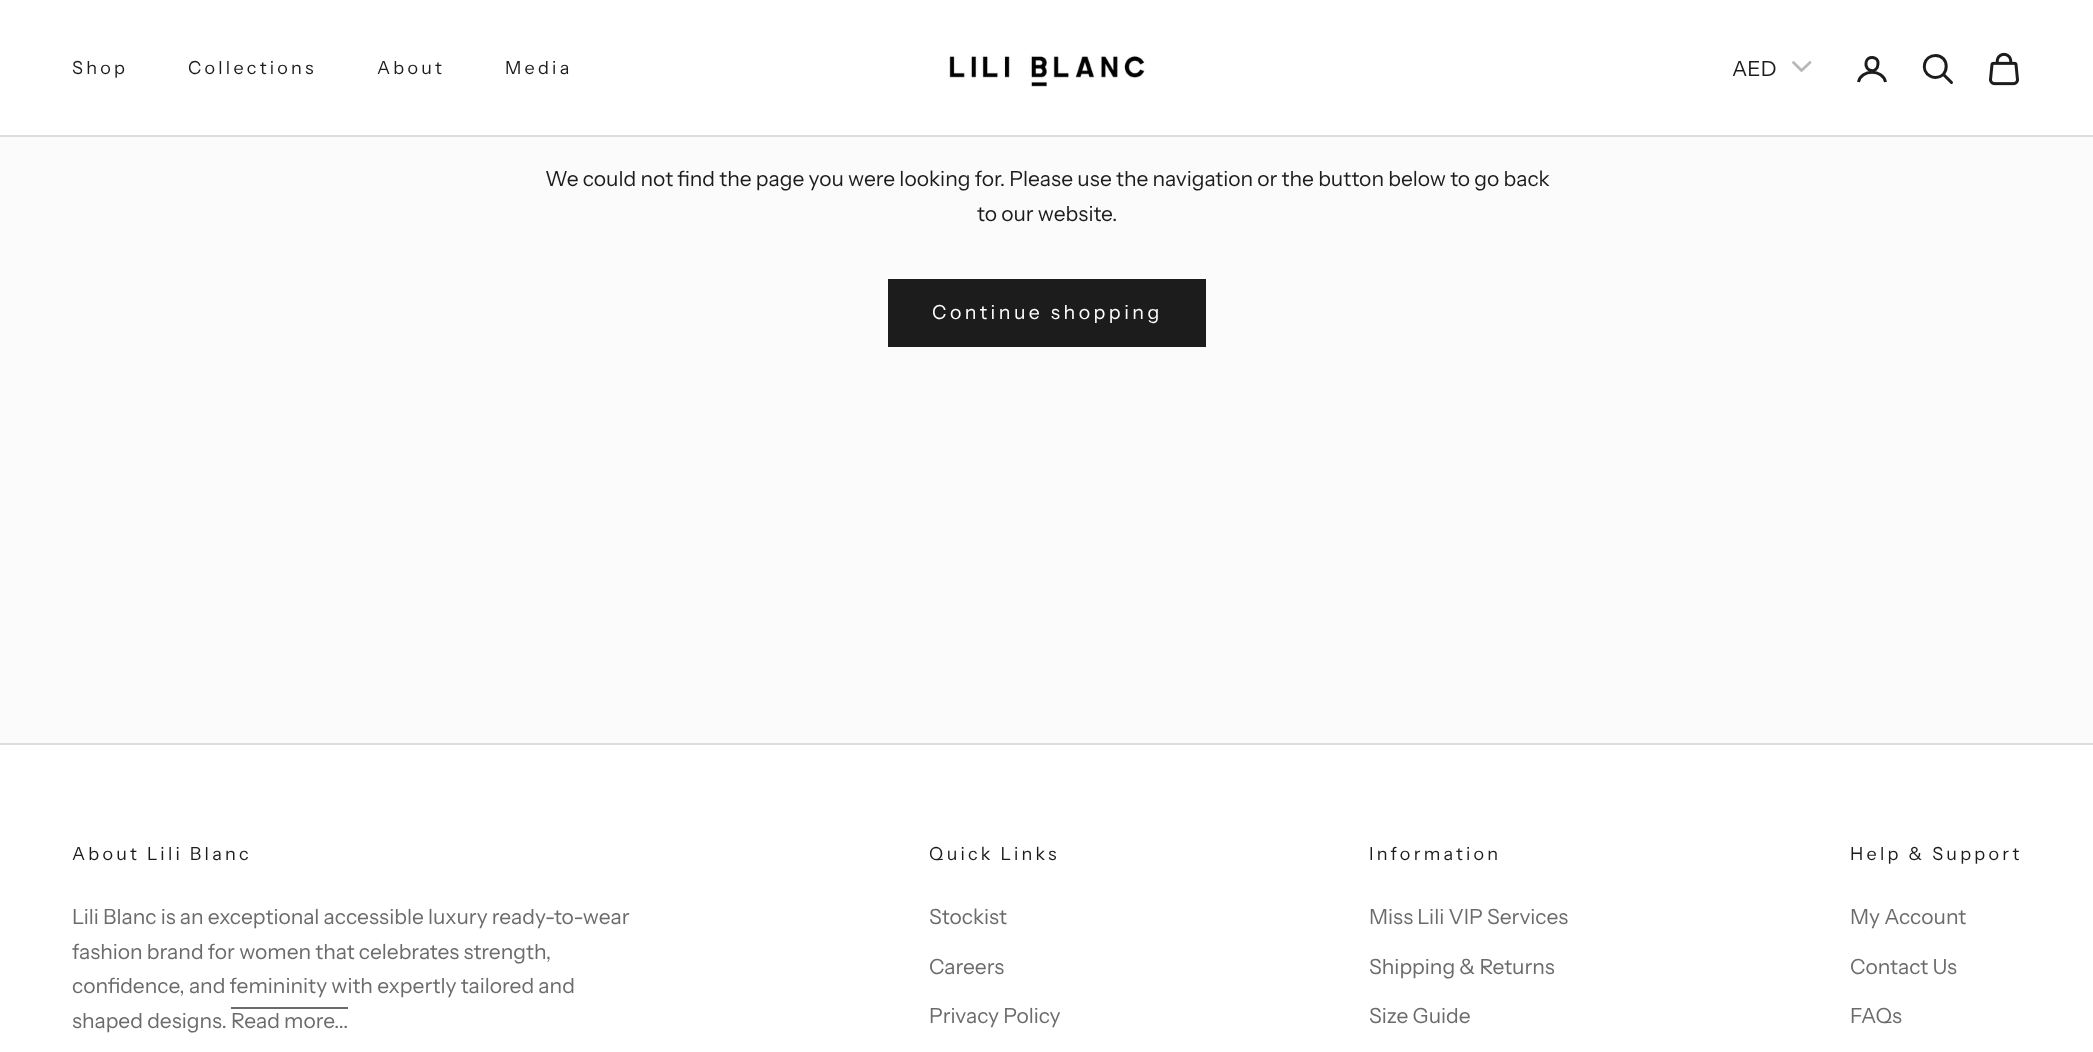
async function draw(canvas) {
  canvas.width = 2093;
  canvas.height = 1052;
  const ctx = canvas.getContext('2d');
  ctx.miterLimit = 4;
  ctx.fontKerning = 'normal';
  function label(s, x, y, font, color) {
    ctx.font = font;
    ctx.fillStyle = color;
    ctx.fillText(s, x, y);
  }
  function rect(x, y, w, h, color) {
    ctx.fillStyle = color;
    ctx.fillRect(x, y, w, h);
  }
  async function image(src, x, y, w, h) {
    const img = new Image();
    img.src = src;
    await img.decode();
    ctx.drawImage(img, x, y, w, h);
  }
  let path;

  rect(0, 0, 2093, 1052, '#fff');
  rect(0, 135, 2093, 2, '#ddd');
  ctx.letterSpacing = '3.25px';
  label('Shop', 72, 74, '18px Instrument Sans', '#1c1c1c');
  label('Collections', 188, 74, '18px Instrument Sans', '#1c1c1c');
  label('About', 377, 74, '18px Instrument Sans', '#1c1c1c');
  label('Media', 505, 74, '18px Instrument Sans', '#1c1c1c');
  await image('assets/img1.png', 949, 54, 197, 33);
  ctx.letterSpacing = '0px';
  label('AED', 1732, 76, '21px Instrument Sans', '#1c1c1c');
  path = new Path2D('M1793.5 62.5L1801.5 70.5L1810 62.5');
  ctx.strokeStyle = '#b7b7b7';
  ctx.lineWidth = 2.7;
  ctx.lineCap = 'round';
  ctx.lineJoin = 'round';
  ctx.stroke(path);
  path = new Path2D('M1878 64C1877.5 74 1864.5 72 1866 62.5C1867 55 1879 56 1878 64Z');
  ctx.strokeStyle = '#1c1c1c';
  ctx.lineWidth = 3;
  ctx.stroke(path);
  path = new Path2D('M1858.5 82C1861 69 1883 69 1885.5 82');
  ctx.lineCap = 'butt';
  ctx.lineJoin = 'miter';
  ctx.stroke(path);
  path = new Path2D('M1935.5 55.5C1924 55.5 1920 70.5 1930 76C1931.5 77 1933.5 77.5 1935.5 77.5C1950 77 1949.5 55.5 1935.5 55.5Z');
  ctx.stroke(path);
  path = new Path2D('M1944 75L1951.5 82.5');
  ctx.lineCap = 'round';
  ctx.stroke(path);
  await image('assets/img2.png', 1989, 52, 30, 34);
  rect(0, 137, 2093, 606, '#fbfbfb');
  label('We could not find the page you were looking for. Please use the navigation or the button below to go back', 545, 186, '21px Instrument Sans', '#1c1c1c');
  label('to our website.', 977, 221, '21px Instrument Sans', '#1c1c1c');
  ctx.beginPath();
  ctx.rect(889, 280, 316, 66);
  ctx.fill();
  ctx.lineWidth = 2;
  ctx.stroke();
  ctx.letterSpacing = '3.5px';
  label('Continue shopping', 932, 319, '19.5px Instrument Sans', '#fff');
  rect(0, 743, 2093, 2, '#ddd');
  ctx.letterSpacing = '3.25px';
  label('About Lili Blanc', 72, 860, '18px Instrument Sans', '#1c1c1c');
  ctx.letterSpacing = '0px';
  label('Lili Blanc is an exceptional accessible luxury ready-to-wear', 72, 924, '21px Instrument Sans', '#6b6b6b');
  label('fashion brand for women that celebrates strength,', 72, 959, '21px Instrument Sans', '#6b6b6b');
  label('confidence, and femininity with expertly tailored and', 72, 993, '21px Instrument Sans', '#6b6b6b');
  rect(231, 1007, 117, 2, '#6b6b6b');
  label('shaped designs. Read more...', 72, 1028, '21px Instrument Sans', '#6b6b6b');
  ctx.letterSpacing = '3.25px';
  label('Quick Links', 929, 860, '18px Instrument Sans', '#1c1c1c');
  ctx.letterSpacing = '0px';
  label('Stockist', 929, 924, '21px Instrument Sans', '#6b6b6b');
  label('Careers', 929, 974, '21px Instrument Sans', '#6b6b6b');
  label('Privacy Policy', 929, 1023, '21px Instrument Sans', '#6b6b6b');
  ctx.letterSpacing = '3.25px';
  label('Information', 1369, 860, '18px Instrument Sans', '#1c1c1c');
  ctx.letterSpacing = '0px';
  label('Miss Lili VIP Services', 1369, 924, '21px Instrument Sans', '#6b6b6b');
  label('Shipping & Returns', 1369, 974, '21px Instrument Sans', '#6b6b6b');
  label('Size Guide', 1369, 1023, '21px Instrument Sans', '#6b6b6b');
  ctx.letterSpacing = '3.25px';
  label('Help & Support', 1850, 860, '18px Instrument Sans', '#1c1c1c');
  ctx.letterSpacing = '0px';
  label('My Account', 1850, 924, '21px Instrument Sans', '#6b6b6b');
  label('Contact Us', 1850, 974, '21px Instrument Sans', '#6b6b6b');
  label('FAQs', 1850, 1023, '21px Instrument Sans', '#6b6b6b');
}

draw(document.querySelector('canvas'));
